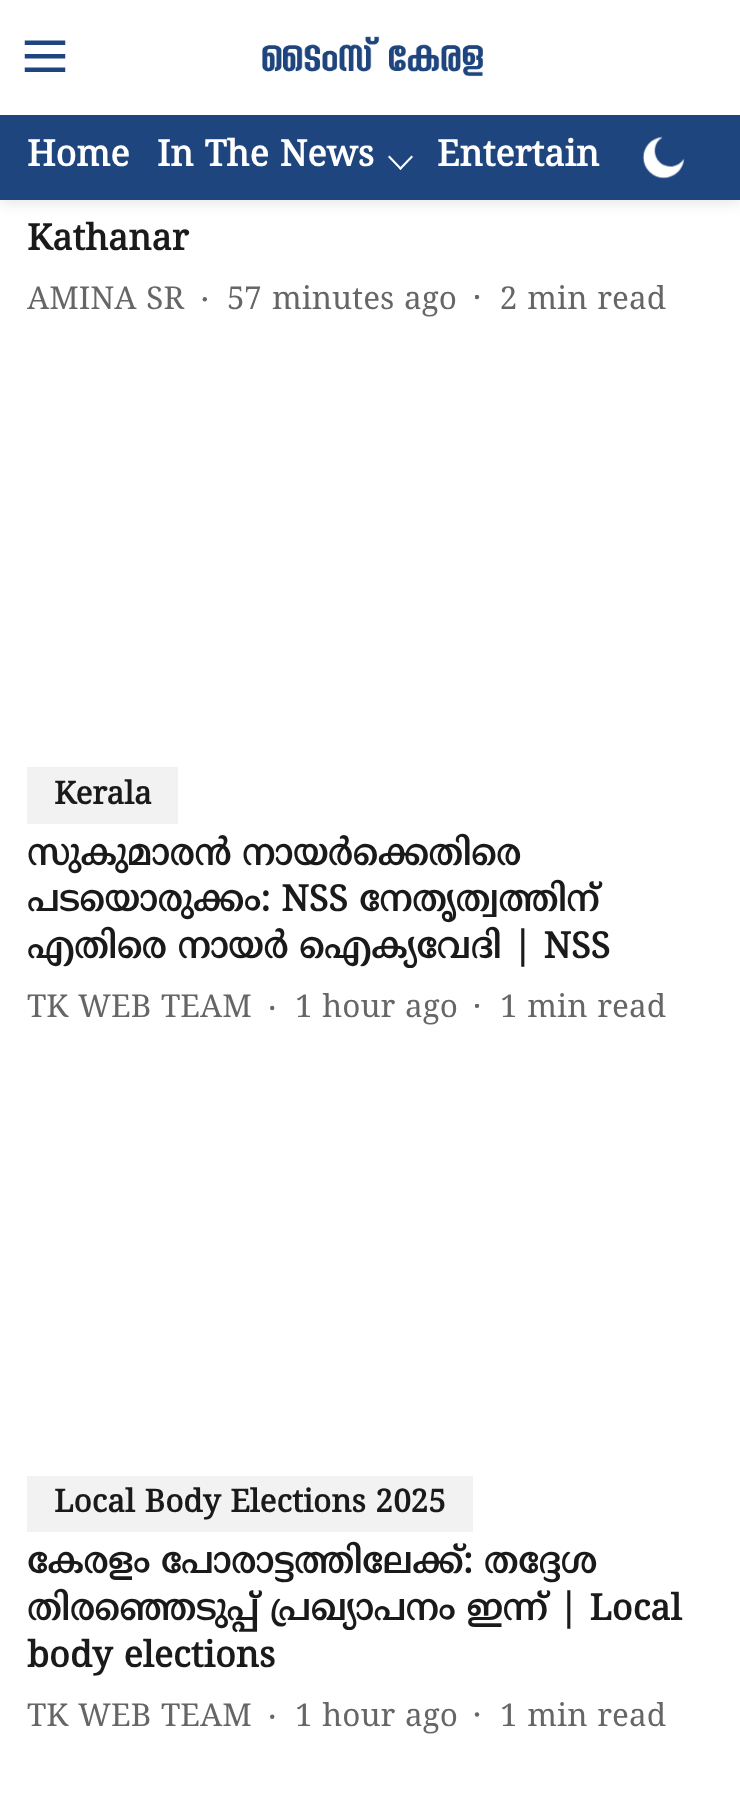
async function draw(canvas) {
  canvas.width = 740;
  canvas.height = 1806;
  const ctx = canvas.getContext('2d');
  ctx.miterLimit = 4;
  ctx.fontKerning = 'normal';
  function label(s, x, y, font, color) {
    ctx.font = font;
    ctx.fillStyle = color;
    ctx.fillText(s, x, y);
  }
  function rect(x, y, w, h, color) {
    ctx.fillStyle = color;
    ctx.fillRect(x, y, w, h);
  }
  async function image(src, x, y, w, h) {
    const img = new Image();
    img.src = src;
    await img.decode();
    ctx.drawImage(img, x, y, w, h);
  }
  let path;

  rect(0, 0, 740, 1806, '#fff');
  ctx.fillStyle = '#0000001a';
  ctx.filter = 'blur(7px)';
  ctx.beginPath();
  ctx.rect(0, 2, 740, 201);
  ctx.fill();
  ctx.filter = 'none';
  rect(0, 0, 740, 115, '#fff');
  await image('assets/img1.png', 24, 40, 42, 32);
  await image('assets/img2.png', 262, 36, 221, 41);
  rect(0, 115, 740, 85, '#1f457e');
  label('Home', 27, 166, 'bold 36px Noto Serif Malayalam', '#fff');
  label('In The News', 157, 166, 'bold 36px Noto Serif Malayalam', '#fff');
  path = new Path2D('M411.5 155.5L413 157L400.5 170L399 168.5Z');
  ctx.fill(path);
  path = new Path2D('M389.5 155.5L402 168.5L400.5 170L388 157Z');
  ctx.fill(path);
  label('Entertain', 437, 166, 'bold 36px Noto Serif Malayalam', '#fff');
  await image('assets/img3.png', 642, 136, 43, 43);
  label('Kathanar', 27, 250, 'bold 36px Noto Serif Malayalam', '#1a1a1a');
  label('AMINA SR', 27, 309, '31.5px Noto Serif Malayalam', '#666');
  ctx.beginPath();
  ctx.arc(204.8, 299.2, 2.2, 0, 2 * Math.PI);
  ctx.fill();
  label('57 minutes ago', 227, 309, '31.5px Noto Serif Malayalam', '#666');
  ctx.save();
  ctx.beginPath();
  ctx.rect(475, 295, 7, 7);
  ctx.clip();
  ctx.beginPath();
  ctx.arc(477, 297, 2.2, 0, 2 * Math.PI);
  ctx.fill();
  ctx.restore();
  label('2 min read', 500, 309, '31.5px Noto Serif Malayalam', '#666');
  rect(27, 767, 151, 57, '#f2f2f2');
  label('Kerala', 54, 804, 'bold 31.5px Noto Serif Malayalam', '#1a1a1a');
  label('സുകുമാരൻ നായർക്കെതിരെ', 27, 865, 'bold 36px Noto Serif Malayalam', '#1a1a1a');
  label('പടയൊരുക്കം: NSS നേതൃത്വത്തിന്', 27, 911, 'bold 36px Noto Serif Malayalam', '#1a1a1a');
  label('എതിരെ നായർ ഐക്യവേദി | NSS', 27, 958, 'bold 36px Noto Serif Malayalam', '#1a1a1a');
  label('TK WEB TEAM', 27, 1017, '31.5px Noto Serif Malayalam', '#666');
  ctx.beginPath();
  ctx.arc(272.2, 1008, 2.2, 0, 2 * Math.PI);
  ctx.fill();
  label('1 hour ago', 295, 1017, '31.5px Noto Serif Malayalam', '#666');
  ctx.save();
  ctx.beginPath();
  ctx.rect(475, 1004, 7, 7);
  ctx.clip();
  ctx.beginPath();
  ctx.arc(477, 1005.8, 2.2, 0, 2 * Math.PI);
  ctx.fill();
  ctx.restore();
  label('1 min read', 500, 1017, '31.5px Noto Serif Malayalam', '#666');
  rect(27, 1476, 446, 56, '#f2f2f2');
  label('Local Body Elections 2025', 54, 1512, 'bold 31.5px Noto Serif Malayalam', '#1a1a1a');
  label('കേരളം പോരാട്ടത്തിലേക്ക്: തദ്ദേശ', 27, 1573, 'bold 36px Noto Serif Malayalam', '#1a1a1a');
  label('തിരഞ്ഞെടുപ്പ് പ്രഖ്യാപനം ഇന്ന് | Local', 27, 1620, 'bold 36px Noto Serif Malayalam', '#1a1a1a');
  label('body elections', 27, 1667, 'bold 36px Noto Serif Malayalam', '#1a1a1a');
  label('TK WEB TEAM', 27, 1726, '31.5px Noto Serif Malayalam', '#666');
  ctx.beginPath();
  ctx.arc(272.2, 1716.8, 2.2, 0, 2 * Math.PI);
  ctx.fill();
  label('1 hour ago', 295, 1726, '31.5px Noto Serif Malayalam', '#666');
  ctx.beginPath();
  ctx.arc(477, 1714.5, 2.2, 0, 2 * Math.PI);
  ctx.fill();
  label('1 min read', 500, 1726, '31.5px Noto Serif Malayalam', '#666');
}

draw(document.querySelector('canvas'));
